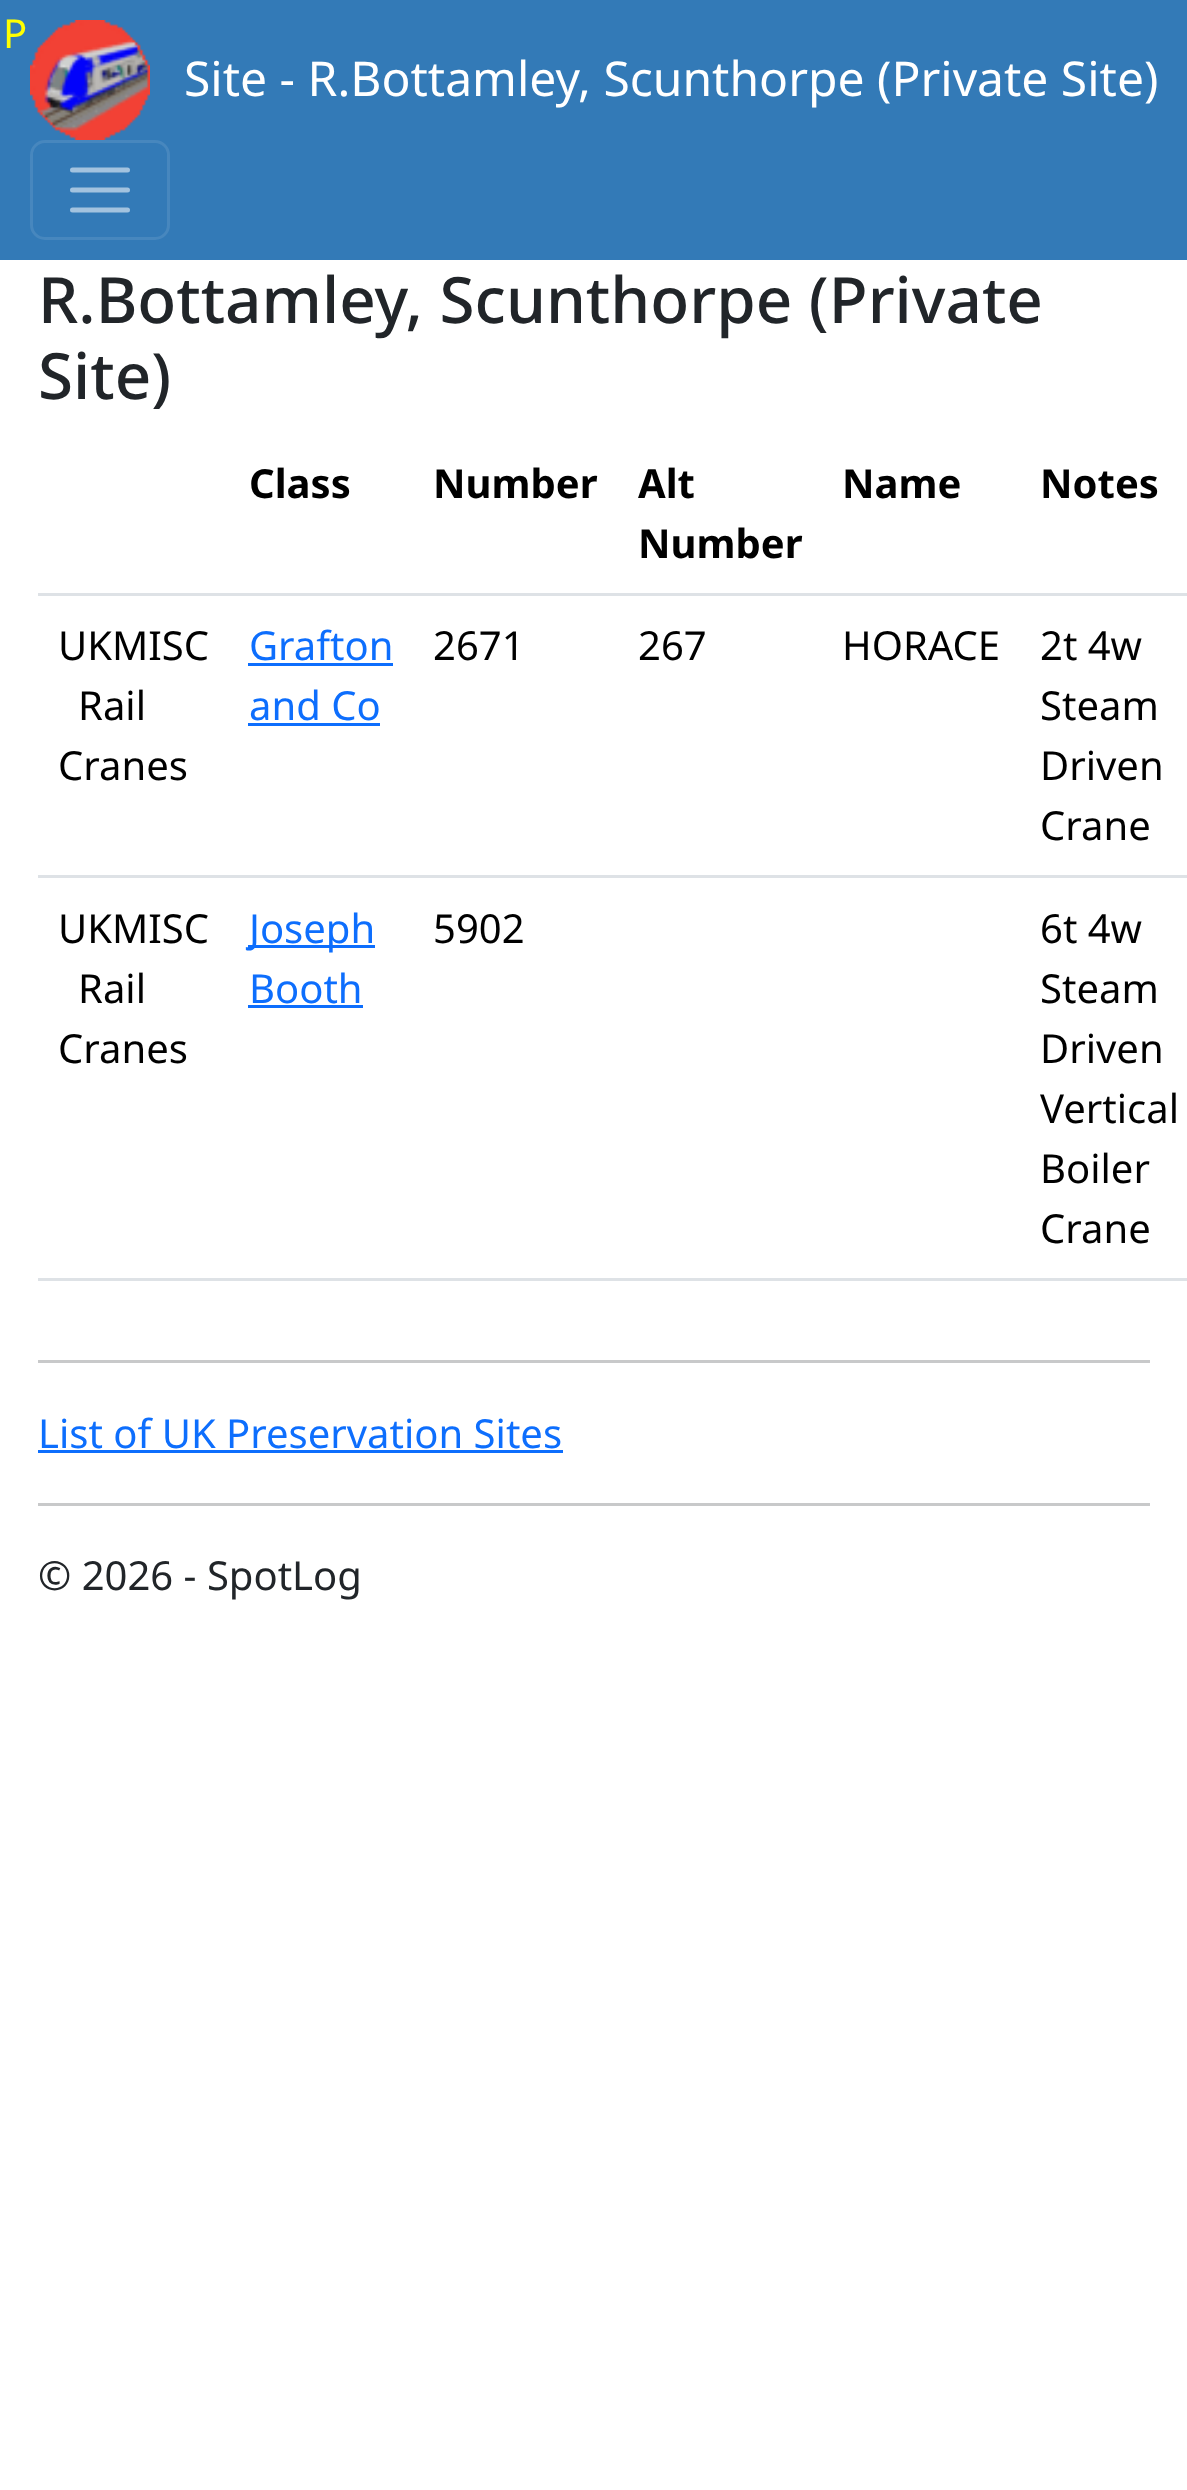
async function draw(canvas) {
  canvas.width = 1187;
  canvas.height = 2490;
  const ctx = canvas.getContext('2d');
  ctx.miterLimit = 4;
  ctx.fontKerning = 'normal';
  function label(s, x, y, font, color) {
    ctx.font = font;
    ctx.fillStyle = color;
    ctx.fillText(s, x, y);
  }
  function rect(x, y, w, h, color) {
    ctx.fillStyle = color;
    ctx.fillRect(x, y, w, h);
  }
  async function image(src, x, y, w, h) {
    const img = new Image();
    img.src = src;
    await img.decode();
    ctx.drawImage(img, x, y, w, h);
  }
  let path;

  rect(0, 0, 1187, 2490, '#fff');
  rect(0, 0, 1187, 260, '#337ab7');
  label('P', 3, 48, '40px Noto Sans', '#ff0');
  await image('assets/img1.png', 30, 20, 120, 120);
  label('Site - R.Bottamley, Scunthorpe (Private Site)', 184, 96, '48px Noto Sans', '#fff');
  ctx.beginPath();
  ctx.roundRect(31.5, 141.5, 137, 97, 13.5);
  ctx.strokeStyle = '#4787be';
  ctx.lineWidth = 3;
  ctx.stroke();
  path = new Path2D('M72.5 170H127.5M72.5 190H127.5M72.5 210H127.5');
  ctx.strokeStyle = '#a3c3df';
  ctx.lineWidth = 5;
  ctx.lineCap = 'round';
  ctx.stroke(path);
  label('R.Bottamley, Scunthorpe (Private', 38, 323, '500 63.75px Noto Sans', '#212529');
  label('Site)', 38, 399, '500 63.75px Noto Sans', '#212529');
  label('Class', 249, 498, 'bold 40px Noto Sans', '#000');
  label('Number', 433, 498, 'bold 40px Noto Sans', '#000');
  label('Alt', 638, 498, 'bold 40px Noto Sans', '#000');
  label('Number', 638, 558, 'bold 40px Noto Sans', '#000');
  label('Name', 842, 498, 'bold 40px Noto Sans', '#000');
  rect(38, 593, 1149, 3, '#dee2e6');
  label('Notes', 1040, 498, 'bold 40px Noto Sans', '#000');
  label('UKMISC', 58, 660, '40px Noto Sans', '#000');
  label('Rail', 78, 720, '40px Noto Sans', '#000');
  label('Cranes', 58, 780, '40px Noto Sans', '#000');
  label('Grafton', 249, 660, '40px Noto Sans', '#0d6efd');
  rect(248, 663, 145, 3, '#0d6efd');
  label('and Co', 249, 720, '40px Noto Sans', '#0d6efd');
  rect(248, 723, 132, 3, '#0d6efd');
  label('2671', 433, 660, '40px Noto Sans', '#000');
  label('267', 638, 660, '40px Noto Sans', '#000');
  label('HORACE', 842, 660, '40px Noto Sans', '#000');
  rect(38, 875, 1149, 3, '#dee2e6');
  label('2t 4w', 1040, 660, '40px Noto Sans', '#000');
  label('Steam', 1040, 720, '40px Noto Sans', '#000');
  label('Driven', 1040, 780, '40px Noto Sans', '#000');
  label('Crane', 1040, 840, '40px Noto Sans', '#000');
  label('UKMISC', 58, 943, '40px Noto Sans', '#000');
  label('Rail', 78, 1003, '40px Noto Sans', '#000');
  label('Cranes', 58, 1063, '40px Noto Sans', '#000');
  rect(248, 945, 127, 3, '#0d6efd');
  label('Joseph', 249, 943, '40px Noto Sans', '#0d6efd');
  label('Booth', 249, 1003, '40px Noto Sans', '#0d6efd');
  rect(248, 1005, 115, 3, '#0d6efd');
  label('5902', 433, 943, '40px Noto Sans', '#000');
  rect(38, 1278, 1149, 3, '#dee2e6');
  label('6t 4w', 1040, 943, '40px Noto Sans', '#000');
  label('Steam', 1040, 1003, '40px Noto Sans', '#000');
  label('Driven', 1040, 1063, '40px Noto Sans', '#000');
  label('Vertical', 1040, 1123, '40px Noto Sans', '#000');
  label('Boiler', 1040, 1183, '40px Noto Sans', '#000');
  label('Crane', 1040, 1243, '40px Noto Sans', '#000');
  rect(38, 1360, 1112, 3, '#c8c9ca');
  label('List of UK Preservation Sites', 38, 1448, '40px Noto Sans', '#0d6efd');
  rect(38, 1450, 525, 3, '#0d6efd');
  rect(38, 1503, 1112, 3, '#c8c9ca');
  label('© 2026 - SpotLog', 38, 1590, '40px Noto Sans', '#212529');
}

draw(document.querySelector('canvas'));
